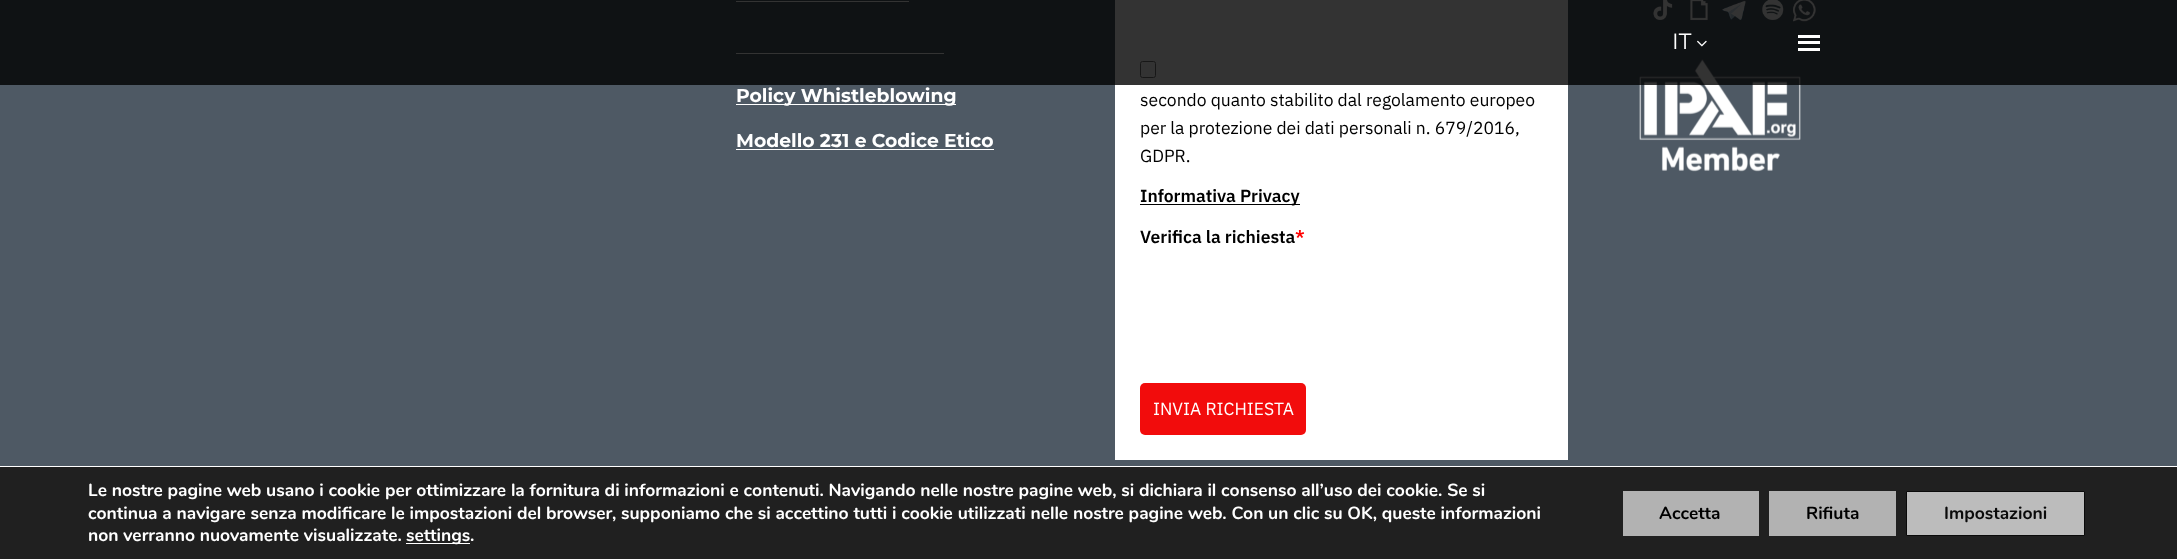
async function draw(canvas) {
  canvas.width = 2177;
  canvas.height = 559;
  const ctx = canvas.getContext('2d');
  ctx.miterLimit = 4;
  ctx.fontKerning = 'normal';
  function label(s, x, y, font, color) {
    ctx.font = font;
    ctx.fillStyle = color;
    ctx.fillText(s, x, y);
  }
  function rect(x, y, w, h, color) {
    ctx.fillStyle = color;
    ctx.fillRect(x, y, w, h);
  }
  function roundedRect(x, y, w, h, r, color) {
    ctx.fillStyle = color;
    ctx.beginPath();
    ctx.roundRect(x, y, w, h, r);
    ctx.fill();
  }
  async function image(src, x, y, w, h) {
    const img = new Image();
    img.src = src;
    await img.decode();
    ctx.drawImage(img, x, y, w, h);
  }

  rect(0, 0, 2177, 559, '#4e5964');
  rect(736, 1, 173, 1, '#fff');
  rect(736, 53, 208, 1, '#fff');
  rect(1115, 0, 453, 460, '#fff');
  ctx.beginPath();
  ctx.roundRect(1140.5, 61.5, 15, 16, 2);
  ctx.strokeStyle = '#767676';
  ctx.stroke();
  await image('assets/img2.png', 1653, 0, 20, 20);
  await image('assets/img3.png', 1690, 0, 18, 21);
  await image('assets/img4.png', 1722, 0, 24, 20);
  await image('assets/img5.png', 1762, 0, 22, 21);
  await image('assets/img6.png', 1793, 0, 23, 22);
  await image('assets/img7.png', 1639, 59, 162, 113);
  rect(0, 0, 2177, 85, '#000000cc');
  label('IT', 1672, 49, '22px Montserrat', '#fff');
  await image('assets/img1.png', 1697, 40, 10, 7);
  rect(1798, 35, 22, 3, '#fff');
  rect(1798, 41, 22, 3, '#fff');
  rect(1798, 48, 22, 3, '#fff');
  rect(736, 104, 220, 1, '#fff');
  label('Policy Whistleblowing', 736, 102, 'bold 18.75px Montserrat', '#fff');
  label('Modello 231 e Codice Etico', 736, 147, 'bold 18.75px Montserrat', '#fff');
  rect(736, 149, 258, 1, '#fff');
  label('secondo quanto stabilito dal regolamento europeo', 1140, 106, '17.5px IBM Plex Sans', '#000');
  label('per la protezione dei dati personali n. 679/2016,', 1140, 134, '17.5px IBM Plex Sans', '#000');
  label('GDPR.', 1140, 162, '17.5px IBM Plex Sans', '#000');
  rect(1140, 204, 160, 1, '#000');
  label('Informativa Privacy', 1140, 202, '600 17.5px IBM Plex Sans', '#000');
  label('Verifica la richiesta', 1140, 243, '600 17.5px IBM Plex Sans', '#000');
  label('*', 1295, 243, '600 17.5px IBM Plex Sans', '#f00');
  roundedRect(1140, 383, 166, 52, 5, '#f20c0c');
  label('INVIA RICHIESTA', 1153, 415, '17.5px IBM Plex Sans', '#fff');
  rect(0, 467, 2177, 92, '#202020');
  rect(0, 466, 2177, 1, '#fff');
  label('Le nostre pagine web usano i cookie per ottimizzare la fornitura di informazioni e contenuti. Navigando nelle nostre pagine web, si dichiara il consenso all’uso dei cookie. Se si', 88, 496, 'bold 17.5px Nunito', '#fff');
  label('continua a navigare senza modificare le impostazioni del browser, supponiamo che si accettino tutti i cookie utilizzati nelle nostre pagine web. Con un clic su OK, queste informazioni', 88, 519, 'bold 17.5px Nunito', '#fff');
  label('non verranno nuovamente visualizzate.', 88, 541, 'bold 17.5px Nunito', '#fff');
  rect(406, 543, 64, 1, '#fff');
  label('settings.', 406, 541, 'bold 17.5px Nunito', '#fff');
  rect(1623, 491, 136, 45, '#b2b2b2');
  label('Accetta', 1659, 519, 'bold 17.5px Nunito', '#000');
  rect(1769, 491, 127, 45, '#b2b2b2');
  label('Rifiuta', 1806, 519, 'bold 17.5px Nunito', '#000');
  ctx.fillStyle = '#bcbcbc';
  ctx.beginPath();
  ctx.rect(1906.5, 491.5, 178, 44);
  ctx.fill();
  ctx.strokeStyle = '#0a0a0a';
  ctx.stroke();
  label('Impostazioni', 1944, 519, 'bold 17.5px Nunito', '#0a0a0a');
}

draw(document.querySelector('canvas'));
